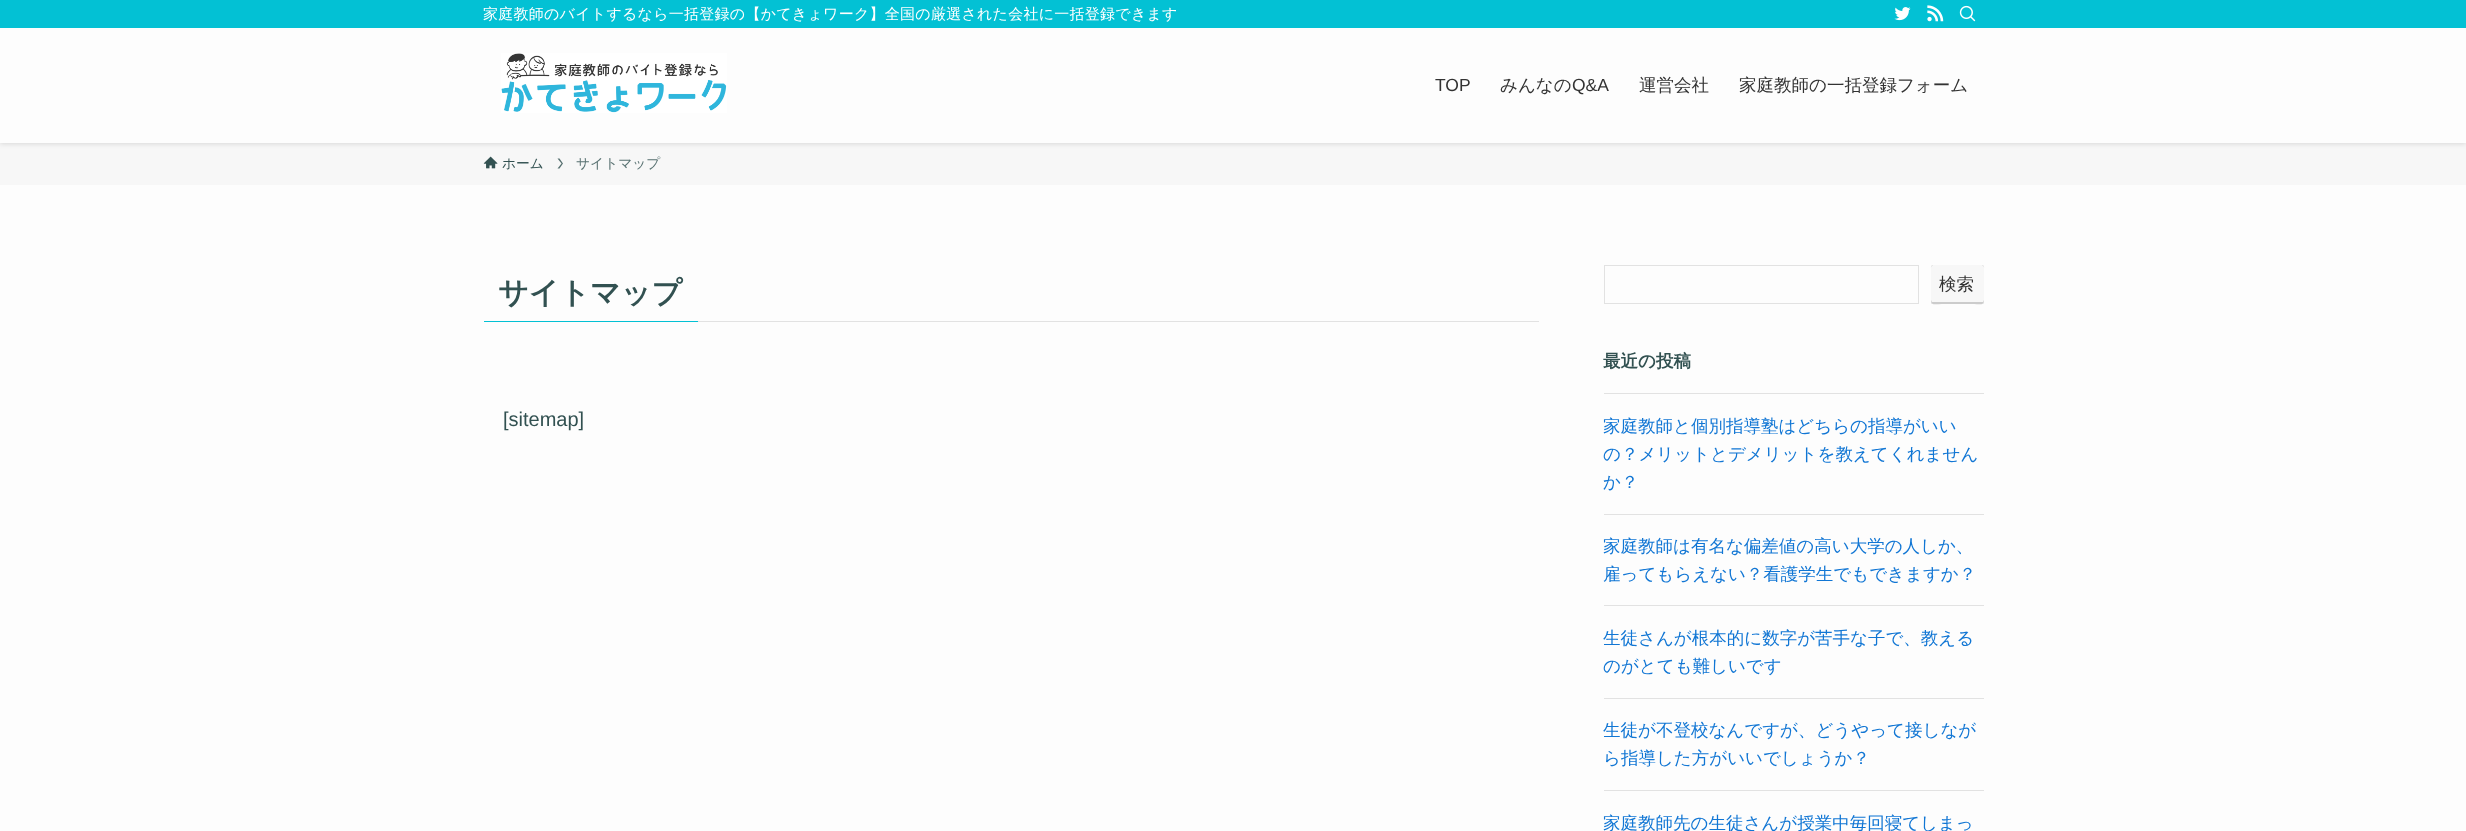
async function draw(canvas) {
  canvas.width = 2466;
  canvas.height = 831;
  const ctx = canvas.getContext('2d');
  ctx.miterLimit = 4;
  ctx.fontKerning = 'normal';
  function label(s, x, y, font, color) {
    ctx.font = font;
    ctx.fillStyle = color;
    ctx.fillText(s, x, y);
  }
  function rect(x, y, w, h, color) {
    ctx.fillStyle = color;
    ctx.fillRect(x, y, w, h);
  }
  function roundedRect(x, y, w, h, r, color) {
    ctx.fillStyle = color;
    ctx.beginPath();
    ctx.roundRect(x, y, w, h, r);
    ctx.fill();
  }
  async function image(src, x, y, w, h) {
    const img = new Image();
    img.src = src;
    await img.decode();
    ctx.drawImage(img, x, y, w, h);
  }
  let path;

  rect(0, 0, 2466, 831, '#fdfdfd');
  rect(0, 143, 2466, 42, '#f7f7f7');
  ctx.fillStyle = '#0000001f';
  ctx.filter = 'blur(2.5px)';
  ctx.beginPath();
  ctx.rect(0, 1, 2466, 143);
  ctx.fill();
  ctx.filter = 'none';
  rect(0, 28, 2466, 115, '#fdfdfd');
  rect(0, 0, 2466, 28, '#03c1d4');
  ctx.letterSpacing = '0.25px';
  label('家庭教師のバイトするなら一括登録の【かてきょワーク】全国の厳選された会社に一括登録できます', 483, 19, '500 15px WenQuanYi Zen Hei', '#fff');
  await image('assets/img1.png', 1894, 7, 17, 14);
  await image('assets/img2.png', 1927, 5, 17, 17);
  await image('assets/img3.png', 1959, 5, 17, 17);
  await image('assets/img4.png', 501, 53, 226, 60);
  ctx.letterSpacing = '0px';
  label('TOP', 1435, 91, '17.5px Liberation Sans', '#333');
  label('みんなの', 1500, 91, '500 17.5px WenQuanYi Zen Hei', '#333');
  label('Q&A', 1572, 91, '17.5px Liberation Sans', '#333');
  label('運営会社', 1639, 91, '500 17.5px WenQuanYi Zen Hei', '#333');
  label('家庭教師の一括登録フォーム', 1739, 91, '500 17.5px WenQuanYi Zen Hei', '#333');
  await image('assets/img5.png', 483, 156, 15, 13);
  label('ホーム', 502, 168, '500 13.75px WenQuanYi Zen Hei', '#325151');
  ctx.fillStyle = '#597272';
  path = new Path2D('M559.5 158.5H557.5L561.5 163.5L557.5 168.5H559.5L563 163.5Z');
  ctx.fill(path);
  label('サイトマップ', 576, 168, '500 13.75px WenQuanYi Zen Hei', '#597272');
  rect(698, 321, 841, 1, '#e2e2e2');
  rect(484, 321, 214, 1, '#03c1d4');
  label('サイトマップ', 498, 303, 'bold 30px WenQuanYi Zen Hei', '#325151');
  label('[sitemap]', 503, 426, '20px Liberation Sans', '#325151');
  ctx.strokeStyle = '#e2e2e2';
  ctx.strokeRect(1604.5, 265.5, 314, 38);
  ctx.fillStyle = '#aaa';
  ctx.filter = 'blur(0.5px)';
  ctx.beginPath();
  ctx.roundRect(1931, 265, 53, 39, 2.5);
  ctx.fill();
  ctx.filter = 'none';
  roundedRect(1931, 265, 53, 39, 2.5, '#f7f7f7');
  ctx.fillStyle = '#ccc';
  path = new Path2D('M1931 300C1931 306 1936 304 1942 304H1974C1979 304 1984 306 1984 300L1983 302C1981 302 1934 302 1932 302Z');
  ctx.fill(path);
  label('検索', 1939, 290, '500 17.5px WenQuanYi Zen Hei', '#333');
  label('最近の投稿', 1603, 367, 'bold 17.5px WenQuanYi Zen Hei', '#325151');
  rect(1604, 393, 380, 1, '#e2e2e2');
  rect(1604, 514, 380, 1, '#e2e2e2');
  label('家庭教師と個別指導塾はどちらの指導がいい', 1603, 432, '500 17.5px WenQuanYi Zen Hei', '#1176d4');
  label('の？メリットとデメリットを教えてくれません', 1603, 460, '500 17.5px WenQuanYi Zen Hei', '#1176d4');
  label('か？', 1603, 488, '500 17.5px WenQuanYi Zen Hei', '#1176d4');
  rect(1604, 605, 380, 1, '#e2e2e2');
  label('家庭教師は有名な偏差値の高い大学の人しか、', 1603, 552, '500 17.5px WenQuanYi Zen Hei', '#1176d4');
  label('雇ってもらえない？看護学生でもできますか？', 1603, 580, '500 17.5px WenQuanYi Zen Hei', '#1176d4');
  rect(1604, 698, 380, 1, '#e2e2e2');
  label('生徒さんが根本的に数字が苦手な子で、教える', 1603, 644, '500 17.5px WenQuanYi Zen Hei', '#1176d4');
  label('のがとても難しいです', 1603, 672, '500 17.5px WenQuanYi Zen Hei', '#1176d4');
  rect(1604, 790, 380, 1, '#e2e2e2');
  label('生徒が不登校なんですが、どうやって接しなが', 1603, 736, '500 17.5px WenQuanYi Zen Hei', '#1176d4');
  label('ら指導した方がいいでしょうか？', 1603, 764, '500 17.5px WenQuanYi Zen Hei', '#1176d4');
  label('家庭教師先の生徒さんが授業中毎回寝てしまっ', 1603, 829, '500 17.5px WenQuanYi Zen Hei', '#1176d4');
}

draw(document.querySelector('canvas'));
